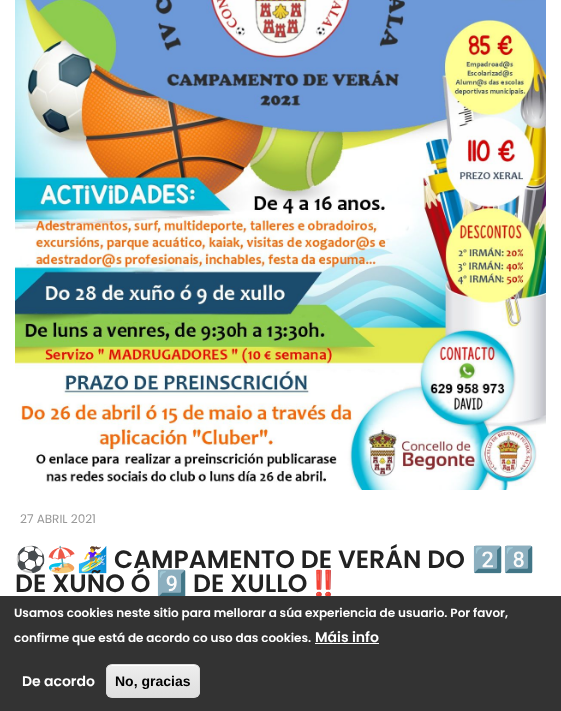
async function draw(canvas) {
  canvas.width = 561;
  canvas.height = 711;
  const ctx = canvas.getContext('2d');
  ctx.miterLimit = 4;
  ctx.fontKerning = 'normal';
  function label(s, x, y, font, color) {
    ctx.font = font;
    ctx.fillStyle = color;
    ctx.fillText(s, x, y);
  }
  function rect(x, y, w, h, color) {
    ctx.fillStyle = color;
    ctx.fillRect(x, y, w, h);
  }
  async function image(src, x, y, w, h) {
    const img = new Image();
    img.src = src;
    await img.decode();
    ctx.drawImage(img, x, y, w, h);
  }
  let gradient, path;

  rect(0, 0, 561, 711, '#fff');
  await image('assets/img1.png', 15, 0, 531, 490);
  label('27 ABRIL 2021', 20, 523, '12px Poppins', '#999');
  label('⚽️🏖🏄‍♀️', 15, 568, 'bold 25px Noto Color Emoji', '#222');
  label('CAMPAMENTO DE VERÁN DO', 114, 568, '600 25px Poppins', '#222');
  label('2️⃣8️⃣', 472, 568, 'bold 25px Noto Color Emoji', '#222');
  label('DE XUÑO Ó', 15, 592, '600 25px Poppins', '#222');
  label('9️⃣', 156, 592, 'bold 25px Noto Color Emoji', '#222');
  label('DE XULLO', 193, 592, '600 25px Poppins', '#222');
  label('‼️', 308, 592, 'bold 25px Noto Color Emoji', '#222');
  rect(0, 596, 561, 115, '#333');
  label('Usamos cookies neste sitio para mellorar a súa experiencia de usuario. Por favor,', 14, 617, '600 12px Poppins', '#fff');
  label('confirme que está de acordo co uso das cookies.', 14, 642, '600 12px Poppins', '#fff');
  label('Máis info', 315, 642, '600 14px Poppins', '#fff');
  rect(315, 643, 64, 1, '#fff');
  label('De acordo', 22, 686, '600 14px Poppins', '#fff');
  ctx.save();
  ctx.beginPath();
  ctx.roundRect(106, 664, 94, 34, 6);
  ctx.clip();
  gradient = ctx.createLinearGradient(153, 665, 153, 697);
  gradient.addColorStop(0.05, '#ededed');
  gradient.addColorStop(1, '#dfdfdf');
  ctx.fillStyle = gradient;
  ctx.fillRect(106, 665, 94, 32);
  ctx.restore();
  path = new Path2D('M112 666H194C197 666 199 668 199 671C199 662 186 665 180 665H126C120 665 107 662 107 671C107 668 109 666 112 666Z');
  ctx.fill(path);
  ctx.beginPath();
  ctx.roundRect(106.5, 664.5, 93, 33, 5.5);
  ctx.strokeStyle = '#dcdcdc';
  ctx.stroke();
  label('No, gracias', 115, 686, 'bold 14px Liberation Sans', '#000');
}

draw(document.querySelector('canvas'));
